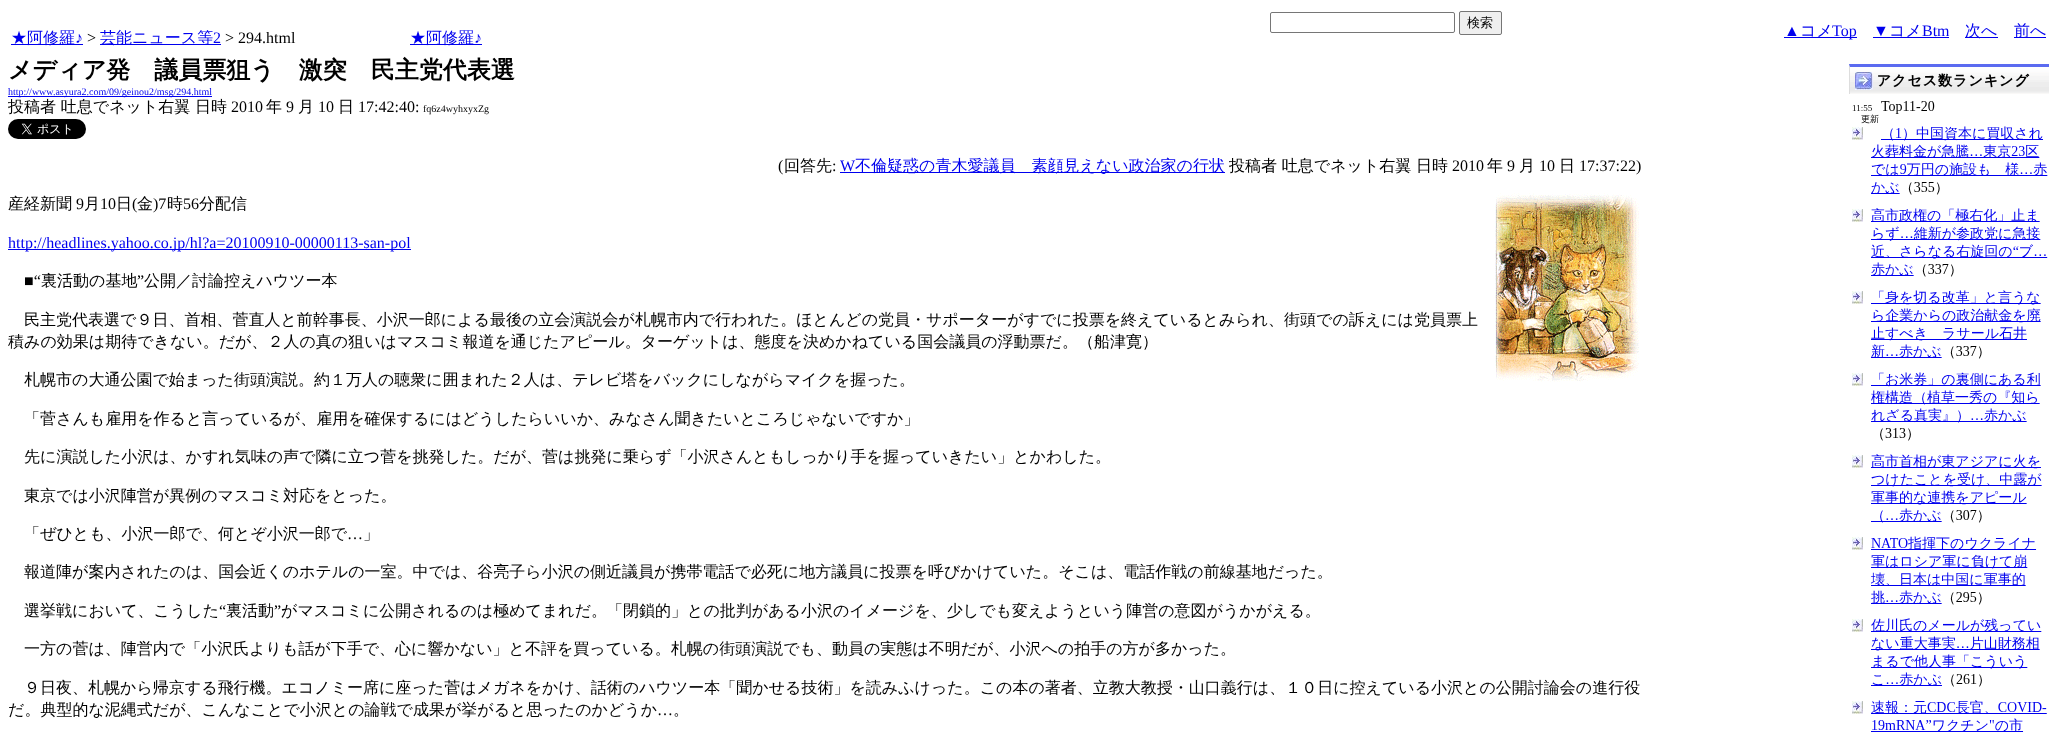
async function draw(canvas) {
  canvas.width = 2057;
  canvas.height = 736;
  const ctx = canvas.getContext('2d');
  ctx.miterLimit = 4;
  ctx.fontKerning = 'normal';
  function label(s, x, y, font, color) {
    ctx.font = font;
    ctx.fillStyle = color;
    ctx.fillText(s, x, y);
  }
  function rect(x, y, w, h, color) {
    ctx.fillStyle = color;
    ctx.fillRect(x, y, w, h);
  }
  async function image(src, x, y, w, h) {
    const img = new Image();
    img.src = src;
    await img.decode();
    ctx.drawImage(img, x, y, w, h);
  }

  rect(0, 0, 2057, 736, '#fff');
  rect(11, 44, 72, 1, '#00e');
  label('★阿修羅', 11, 43, '500 16px WenQuanYi Zen Hei', '#00e');
  label('♪', 75, 43, '16px Liberation Serif', '#00e');
  label('>', 87, 43, '16px Liberation Serif', '#000');
  rect(100, 44, 121, 1, '#00e');
  label('芸能ニュース等', 100, 43, '500 16px WenQuanYi Zen Hei', '#00e');
  label('2', 213, 43, '16px Liberation Serif', '#00e');
  label('> 294.html', 225, 43, '16px Liberation Serif', '#000');
  rect(410, 44, 72, 1, '#00e');
  label('★阿修羅', 410, 43, '500 16px WenQuanYi Zen Hei', '#00e');
  label('♪', 474, 43, '16px Liberation Serif', '#00e');
  ctx.beginPath();
  ctx.roundRect(1270.5, 12.5, 184, 20, 1.5);
  ctx.strokeStyle = '#767676';
  ctx.stroke();
  ctx.fillStyle = '#efefef';
  ctx.beginPath();
  ctx.roundRect(1459.5, 11.5, 42, 23, 1.5);
  ctx.fill();
  ctx.stroke();
  label('検索', 1467, 27, '500 13px WenQuanYi Zen Hei', '#000');
  label('▲', 1784, 36, '16px Liberation Serif', '#00e');
  label('コメ', 1800, 36, '500 16px WenQuanYi Zen Hei', '#00e');
  rect(1784, 37, 73, 1, '#00e');
  label('Top', 1832, 36, '16px Liberation Serif', '#00e');
  label('▼', 1873, 36, '16px Liberation Serif', '#00e');
  rect(1873, 37, 76, 1, '#00e');
  label('コメ', 1889, 36, '500 16px WenQuanYi Zen Hei', '#00e');
  label('Btm', 1922, 36, '16px Liberation Serif', '#00e');
  rect(1965, 37, 33, 1, '#00e');
  label('次へ', 1965, 36, '500 16px WenQuanYi Zen Hei', '#00e');
  rect(2014, 37, 32, 1, '#00e');
  label('前へ', 2014, 36, '500 16px WenQuanYi Zen Hei', '#00e');
  label('メディア発　議員票狙う　激突　民主党代表選', 8, 78, 'bold 24px WenQuanYi Zen Hei', '#000');
  rect(8, 96, 204, 1, '#00e');
  label('http://www.asyura2.com/09/geinou2/msg/294.html', 8, 95, '10px Liberation Serif', '#00e');
  label('投稿者 吐息でネット右翼 日時', 8, 112, '500 16px WenQuanYi Zen Hei', '#000');
  label('2010', 231, 112, '16px Liberation Serif', '#000');
  label('年', 266, 112, '500 16px WenQuanYi Zen Hei', '#000');
  label('9', 286, 112, '16px Liberation Serif', '#000');
  label('月', 298, 112, '500 16px WenQuanYi Zen Hei', '#000');
  label('10', 318, 112, '16px Liberation Serif', '#000');
  label('日', 338, 112, '500 16px WenQuanYi Zen Hei', '#000');
  label('17:42:40:', 358, 112, '16px Liberation Serif', '#000');
  label('fq6z4wyhxyxZg', 423, 112, '10px Liberation Serif', '#000');
  await image('assets/img1.png', 8, 119, 78, 20);
  label('(', 778, 171, '16px Liberation Serif', '#000');
  label('回答先', 784, 171, '500 16px WenQuanYi Zen Hei', '#000');
  label(':', 832, 171, '16px Liberation Serif', '#000');
  label('W', 840, 171, '16px Liberation Serif', '#00e');
  rect(840, 172, 385, 1, '#00e');
  label('不倫疑惑の青木愛議員　素顔見えない政治家の行状', 855, 171, '500 16px WenQuanYi Zen Hei', '#00e');
  label('投稿者 吐息でネット右翼 日時', 1229, 171, '500 16px WenQuanYi Zen Hei', '#000');
  label('2010', 1452, 171, '16px Liberation Serif', '#000');
  label('年', 1487, 171, '500 16px WenQuanYi Zen Hei', '#000');
  label('9', 1507, 171, '16px Liberation Serif', '#000');
  label('月', 1519, 171, '500 16px WenQuanYi Zen Hei', '#000');
  label('10', 1539, 171, '16px Liberation Serif', '#000');
  label('日', 1559, 171, '500 16px WenQuanYi Zen Hei', '#000');
  label('17:37:22)', 1579, 171, '16px Liberation Serif', '#000');
  label('産経新聞', 8, 209, '500 16px WenQuanYi Zen Hei', '#000');
  label('9', 76, 209, '16px Liberation Serif', '#000');
  label('月', 84, 209, '500 16px WenQuanYi Zen Hei', '#000');
  label('10', 100, 209, '16px Liberation Serif', '#000');
  label('日', 116, 209, '500 16px WenQuanYi Zen Hei', '#000');
  label('(', 132, 209, '16px Liberation Serif', '#000');
  label('金', 137, 209, '500 16px WenQuanYi Zen Hei', '#000');
  label(')7', 153, 209, '16px Liberation Serif', '#000');
  label('時', 167, 209, '500 16px WenQuanYi Zen Hei', '#000');
  label('56', 183, 209, '16px Liberation Serif', '#000');
  label('分配信', 199, 209, '500 16px WenQuanYi Zen Hei', '#000');
  await image('assets/img2.png', 1495, 193, 145, 189);
  rect(8, 249, 403, 1, '#00e');
  label('http://headlines.yahoo.co.jp/hl?a=20100910-00000113-san-pol', 8, 248, '16px Liberation Serif', '#00e');
  label('■“', 24, 286, '16px Liberation Serif', '#000');
  label('裏活動の基地', 41, 286, '500 16px WenQuanYi Zen Hei', '#000');
  label('”', 137, 286, '16px Liberation Serif', '#000');
  label('公開／討論控えハウツー本', 144, 286, '500 16px WenQuanYi Zen Hei', '#000');
  label('民主党代表選で９日、首相、菅直人と前幹事長、小沢一郎による最後の立会演説会が札幌市内で行われた。ほとんどの党員・サポーターがすでに投票を終えているとみられ、街頭での訴えには党員票上', 24, 325, '500 16px WenQuanYi Zen Hei', '#000');
  label('積みの効果は期待できない。だが、２人の真の狙いはマスコミ報道を通じたアピール。ターゲットは、態度を決めかねている国会議員の浮動票だ。（船津寛）', 8, 347, '500 16px WenQuanYi Zen Hei', '#000');
  label('札幌市の大通公園で始まった街頭演説。約１万人の聴衆に囲まれた２人は、テレビ塔をバックにしながらマイクを握った。', 24, 385, '500 16px WenQuanYi Zen Hei', '#000');
  label('「菅さんも雇用を作ると言っているが、雇用を確保するにはどうしたらいいか、みなさん聞きたいところじゃないですか」', 24, 424, '500 16px WenQuanYi Zen Hei', '#000');
  label('先に演説した小沢は、かすれ気味の声で隣に立つ菅を挑発した。だが、菅は挑発に乗らず「小沢さんともしっかり手を握っていきたい」とかわした。', 24, 462, '500 16px WenQuanYi Zen Hei', '#000');
  label('東京では小沢陣営が異例のマスコミ対応をとった。', 24, 501, '500 16px WenQuanYi Zen Hei', '#000');
  label('「ぜひとも、小沢一郎で、何とぞ小沢一郎で', 24, 539, '500 16px WenQuanYi Zen Hei', '#000');
  label('…', 347, 539, '16px Liberation Serif', '#000');
  label('」', 363, 539, '500 16px WenQuanYi Zen Hei', '#000');
  label('報道陣が案内されたのは、国会近くのホテルの一室。中では、谷亮子ら小沢の側近議員が携帯電話で必死に地方議員に投票を呼びかけていた。そこは、電話作戦の前線基地だった。', 24, 577, '500 16px WenQuanYi Zen Hei', '#000');
  label('選挙戦において、こうした', 24, 616, '500 16px WenQuanYi Zen Hei', '#000');
  label('“', 219, 616, '16px Liberation Serif', '#000');
  label('裏活動', 226, 616, '500 16px WenQuanYi Zen Hei', '#000');
  label('”', 274, 616, '16px Liberation Serif', '#000');
  label('がマスコミに公開されるのは極めてまれだ。「閉鎖的」との批判がある小沢のイメージを、少しでも変えようという陣営の意図がうかがえる。', 281, 616, '500 16px WenQuanYi Zen Hei', '#000');
  label('一方の菅は、陣営内で「小沢氏よりも話が下手で、心に響かない」と不評を買っている。札幌の街頭演説でも、動員の実態は不明だが、小沢への拍手の方が多かった。', 24, 654, '500 16px WenQuanYi Zen Hei', '#000');
  label('９日夜、札幌から帰京する飛行機。エコノミー席に座った菅はメガネをかけ、話術のハウツー本「聞かせる技術」を読みふけった。この本の著者、立教大教授・山口義行は、１０日に控えている小沢との公開討論会の進行役', 24, 693, '500 16px WenQuanYi Zen Hei', '#000');
  label('だ。典型的な泥縄式だが、こんなことで小沢との論戦で成果が挙がると思ったのかどうか', 8, 715, '500 16px WenQuanYi Zen Hei', '#000');
  label('…', 657, 715, '16px Liberation Serif', '#000');
  label('。', 673, 715, '500 16px WenQuanYi Zen Hei', '#000');
  await image('assets/img3.png', 1849, 64, 200, 668);
}

draw(document.querySelector('canvas'));
